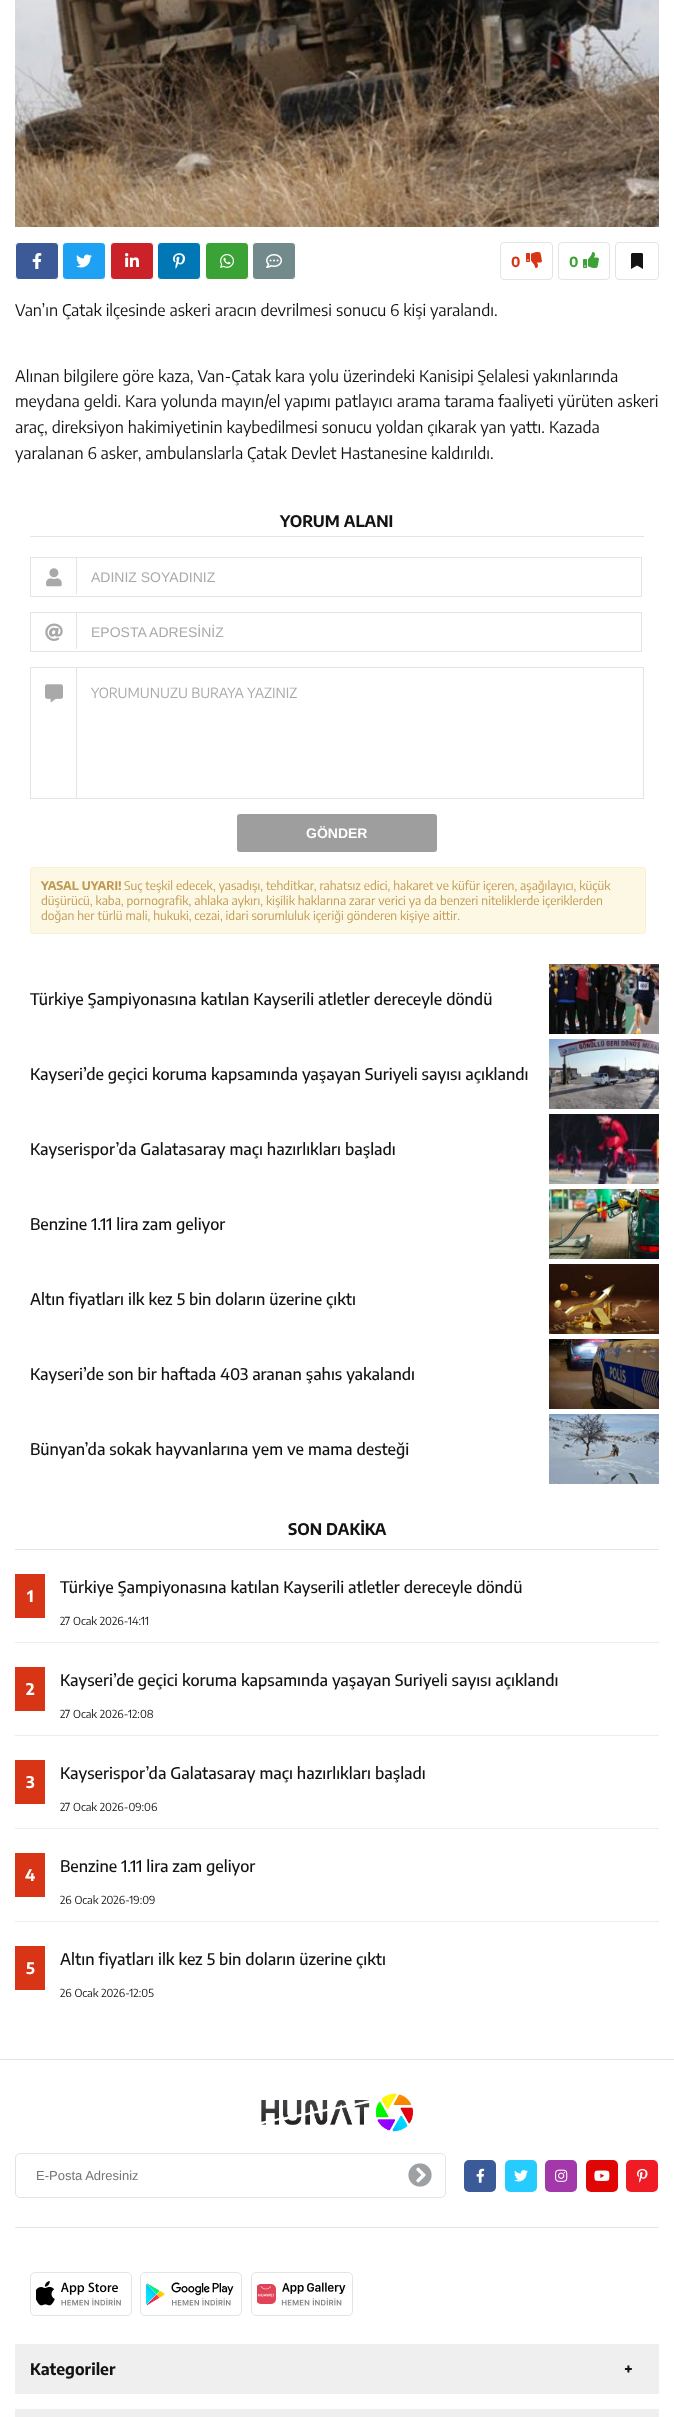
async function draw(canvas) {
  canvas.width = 674;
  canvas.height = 2417;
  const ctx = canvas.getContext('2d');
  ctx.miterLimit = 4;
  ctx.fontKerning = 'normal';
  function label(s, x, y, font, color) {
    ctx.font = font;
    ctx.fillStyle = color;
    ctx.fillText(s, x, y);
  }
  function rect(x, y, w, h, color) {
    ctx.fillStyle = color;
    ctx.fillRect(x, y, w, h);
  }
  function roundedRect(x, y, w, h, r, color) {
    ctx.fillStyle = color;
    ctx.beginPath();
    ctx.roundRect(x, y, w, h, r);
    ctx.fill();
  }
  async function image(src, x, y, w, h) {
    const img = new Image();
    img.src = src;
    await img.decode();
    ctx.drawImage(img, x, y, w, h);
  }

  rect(0, 0, 674, 2417, '#fff');
  await image('assets/img1.png', 15, 0, 644, 227);
  ctx.fillStyle = '#3c5a98';
  ctx.beginPath();
  ctx.roundRect(15.5, 242.5, 43, 37, 3.5);
  ctx.fill();
  ctx.strokeStyle = '#fff';
  ctx.stroke();
  await image('assets/img2.png', 32, 253, 10, 16);
  ctx.fillStyle = '#1ea1f2';
  ctx.beginPath();
  ctx.roundRect(62.5, 242.5, 43, 37, 3.5);
  ctx.fill();
  ctx.stroke();
  await image('assets/img3.png', 76, 254, 16, 14);
  ctx.fillStyle = '#cb2128';
  ctx.beginPath();
  ctx.roundRect(110.5, 242.5, 43, 37, 3.5);
  ctx.fill();
  ctx.stroke();
  await image('assets/img4.png', 125, 253, 14, 14);
  ctx.fillStyle = '#0177b5';
  ctx.beginPath();
  ctx.roundRect(157.5, 242.5, 43, 37, 3.5);
  ctx.fill();
  ctx.stroke();
  await image('assets/img5.png', 173, 253, 12, 16);
  ctx.fillStyle = '#3ba335';
  ctx.beginPath();
  ctx.roundRect(205.5, 242.5, 43, 37, 3.5);
  ctx.fill();
  ctx.stroke();
  await image('assets/img6.png', 220, 254, 14, 14);
  ctx.fillStyle = '#738a8d';
  ctx.beginPath();
  ctx.roundRect(252.5, 242.5, 43, 37, 3.5);
  ctx.fill();
  ctx.stroke();
  await image('assets/img7.png', 266, 254, 16, 14);
  ctx.beginPath();
  ctx.roundRect(500.5, 242.5, 52, 37, 3.5);
  ctx.strokeStyle = '#e4e4e4';
  ctx.stroke();
  label('0', 511, 267, 'bold 14px Encode Sans Condensed', '#d73516');
  await image('assets/img8.png', 526, 252, 16, 16);
  ctx.beginPath();
  ctx.roundRect(558.5, 242.5, 51, 37, 3.5);
  ctx.stroke();
  label('0', 569, 267, 'bold 14px Encode Sans Condensed', '#3ba335');
  await image('assets/img9.png', 583, 252, 16, 16);
  ctx.beginPath();
  ctx.roundRect(615.5, 242.5, 43, 37, 3.5);
  ctx.stroke();
  await image('assets/img10.png', 631, 253, 12, 16);
  label('Van’ın Çatak ilçesinde askeri aracın devrilmesi sonucu 6 kişi yaralandı.', 15, 316, '16px Encode Sans Condensed', '#131313');
  label('Alınan bilgilere göre kaza, Van-Çatak kara yolu üzerindeki Kanisipi Şelalesi yakınlarında', 15, 382, '16px Encode Sans Condensed', '#131313');
  label('meydana geldi. Kara yolunda mayın/el yapımı patlayıcı arama tarama faaliyeti yürüten askeri', 15, 407, '16px Encode Sans Condensed', '#131313');
  label('araç, direksiyon hakimiyetinin kaybedilmesi sonucu yoldan çıkarak yan yattı. Kazada', 15, 433, '16px Encode Sans Condensed', '#131313');
  label('yaralanan 6 asker, ambulanslarla Çatak Devlet Hastanesine kaldırıldı.', 15, 459, '16px Encode Sans Condensed', '#131313');
  rect(30, 536, 614, 1, '#e4e4e4');
  label('YORUM ALANI', 280, 527, 'bold 16px Encode Sans Condensed', '#131313');
  ctx.strokeRect(30.5, 557.5, 611, 39);
  rect(76, 558, 1, 36, '#e4e4e4');
  await image('assets/img11.png', 46, 568, 16, 19);
  label('ADINIZ SOYADINIZ', 91, 582, '14px Liberation Sans', '#a9a9a9');
  ctx.strokeRect(30.5, 612.5, 611, 39);
  rect(76, 613, 1, 36, '#e4e4e4');
  await image('assets/img12.png', 45, 623, 18, 18);
  label('EPOSTA ADRESİNİZ', 91, 637, '14px Liberation Sans', '#a9a9a9');
  ctx.strokeRect(30.5, 667.5, 613, 131);
  rect(76, 668, 1, 130, '#e4e4e4');
  await image('assets/img13.png', 45, 684, 18, 19);
  label('YORUMUNUZU BURAYA YAZINIZ', 91, 698, '14px Encode Sans Condensed', '#a9a9a9');
  roundedRect(237, 814, 200, 38, 3, '#9e9e9e');
  label('GÖNDER', 306, 838, 'bold 14px Liberation Sans', '#fff');
  ctx.fillStyle = '#fcf8e3';
  ctx.beginPath();
  ctx.roundRect(30.5, 867.5, 615, 66, 2.5);
  ctx.fill();
  ctx.strokeStyle = '#fbeed5';
  ctx.stroke();
  label('YASAL UYARI!', 41, 890, 'bold 12px Encode Sans Condensed', '#c09853');
  label('Suç teşkil edecek, yasadışı, tehditkar, rahatsız edici, hakaret ve küfür içeren, aşağılayıcı, küçük', 124, 890, '12px Encode Sans Condensed', '#c09853');
  label('düşürücü, kaba, pornografik, ahlaka aykırı, kişilik haklarına zarar verici ya da benzeri niteliklerde içeriklerden', 41, 905, '12px Encode Sans Condensed', '#c09853');
  label('doğan her türlü mali, hukuki, cezai, idari sorumluluk içeriği gönderen kişiye aittir.', 41, 920, '12px Encode Sans Condensed', '#c09853');
  label('Türkiye Şampiyonasına katılan Kayserili atletler dereceyle döndü', 30, 1005, '500 16px Encode Sans Condensed', '#131313');
  await image('assets/img14.png', 549, 964, 110, 70);
  label('Kayseri’de geçici koruma kapsamında yaşayan Suriyeli sayısı açıklandı', 30, 1080, '500 16px Encode Sans Condensed', '#131313');
  await image('assets/img15.png', 549, 1039, 110, 70);
  label('Kayserispor’da Galatasaray maçı hazırlıkları başladı', 30, 1155, '500 16px Encode Sans Condensed', '#131313');
  await image('assets/img16.png', 549, 1114, 110, 70);
  label('Benzine 1.11 lira zam geliyor', 30, 1230, '500 16px Encode Sans Condensed', '#131313');
  await image('assets/img17.png', 549, 1189, 110, 70);
  label('Altın fiyatları ilk kez 5 bin doların üzerine çıktı', 30, 1305, '500 16px Encode Sans Condensed', '#131313');
  await image('assets/img18.png', 549, 1264, 110, 70);
  label('Kayseri’de son bir haftada 403 aranan şahıs yakalandı', 30, 1380, '500 16px Encode Sans Condensed', '#131313');
  await image('assets/img19.png', 549, 1339, 110, 70);
  label('Bünyan’da sokak hayvanlarına yem ve mama desteği', 30, 1455, '500 16px Encode Sans Condensed', '#131313');
  await image('assets/img20.png', 549, 1414, 110, 70);
  rect(15, 1549, 644, 1, '#e4e4e4');
  label('SON DAKİKA', 288, 1535, 'bold 16px Encode Sans Condensed', '#131313');
  rect(15, 1642, 644, 1, '#ededed');
  rect(15, 1574, 30, 44, '#d73516');
  label('1', 27, 1602, 'bold 16px Encode Sans Condensed', '#fff');
  label('Türkiye Şampiyonasına katılan Kayserili atletler dereceyle döndü', 60, 1593, '500 16px Encode Sans Condensed', '#131313');
  label('27 Ocak 2026-14:11', 60, 1625, '11px Encode Sans Condensed', '#131313');
  rect(15, 1735, 644, 1, '#ededed');
  rect(15, 1667, 30, 44, '#d73516');
  label('2', 26, 1695, 'bold 16px Encode Sans Condensed', '#fff');
  label('Kayseri’de geçici koruma kapsamında yaşayan Suriyeli sayısı açıklandı', 60, 1686, '500 16px Encode Sans Condensed', '#131313');
  label('27 Ocak 2026-12:08', 60, 1718, '11px Encode Sans Condensed', '#131313');
  rect(15, 1828, 644, 1, '#ededed');
  rect(15, 1760, 30, 44, '#d73516');
  label('3', 26, 1788, 'bold 16px Encode Sans Condensed', '#fff');
  label('Kayserispor’da Galatasaray maçı hazırlıkları başladı', 60, 1779, '500 16px Encode Sans Condensed', '#131313');
  label('27 Ocak 2026-09:06', 60, 1811, '11px Encode Sans Condensed', '#131313');
  rect(15, 1921, 644, 1, '#ededed');
  rect(15, 1853, 30, 44, '#d73516');
  label('4', 25, 1881, 'bold 16px Encode Sans Condensed', '#fff');
  label('Benzine 1.11 lira zam geliyor', 60, 1872, '500 16px Encode Sans Condensed', '#131313');
  label('26 Ocak 2026-19:09', 60, 1904, '11px Encode Sans Condensed', '#131313');
  rect(15, 1946, 30, 44, '#d73516');
  label('5', 26, 1974, 'bold 16px Encode Sans Condensed', '#fff');
  label('Altın fiyatları ilk kez 5 bin doların üzerine çıktı', 60, 1965, '500 16px Encode Sans Condensed', '#131313');
  label('26 Ocak 2026-12:05', 60, 1997, '11px Encode Sans Condensed', '#131313');
  rect(0, 2059, 674, 1, '#e4e4e4');
  await image('assets/img21.png', 261, 2093, 152, 39);
  ctx.beginPath();
  ctx.roundRect(15.5, 2153.5, 430, 44, 4.5);
  ctx.strokeStyle = '#e4e4e4';
  ctx.stroke();
  label('E-Posta Adresiniz', 36, 2180, '13px Liberation Sans', '#757575');
  await image('assets/img22.png', 408, 2163, 24, 24);
  roundedRect(464, 2160, 32, 32, 5, '#3a5b98');
  await image('assets/img23.png', 476, 2168, 9, 15);
  roundedRect(505, 2160, 32, 32, 5, '#26ccff');
  await image('assets/img24.png', 514, 2170, 14, 12);
  roundedRect(545, 2160, 32, 32, 5, '#a238a9');
  await image('assets/img25.png', 555, 2169, 13, 13);
  roundedRect(586, 2160, 32, 32, 5, '#e00606');
  await image('assets/img26.png', 594, 2170, 16, 11);
  roundedRect(626, 2160, 32, 32, 5, '#ef1c25');
  await image('assets/img27.png', 637, 2168, 11, 15);
  rect(15, 2227, 644, 1, '#e4e4e4');
  ctx.beginPath();
  ctx.roundRect(30.5, 2272.5, 101, 43, 4.5);
  ctx.stroke();
  await image('assets/img28.png', 36, 2281, 85, 25);
  ctx.beginPath();
  ctx.roundRect(140.5, 2272.5, 101, 43, 4.5);
  ctx.stroke();
  await image('assets/img29.png', 146, 2282, 88, 24);
  ctx.beginPath();
  ctx.roundRect(251.5, 2272.5, 101, 43, 4.5);
  ctx.stroke();
  await image('assets/img30.png', 257, 2282, 89, 24);
  rect(15, 2344, 644, 50, '#efefef');
  label('Kategoriler', 30, 2375, 'bold 16px Encode Sans Condensed', '#131313');
  label('+', 624, 2375, 'bold 16px Encode Sans Condensed', '#131313');
  rect(15, 2409, 644, 8, '#efefef');
}

draw(document.querySelector('canvas'));
